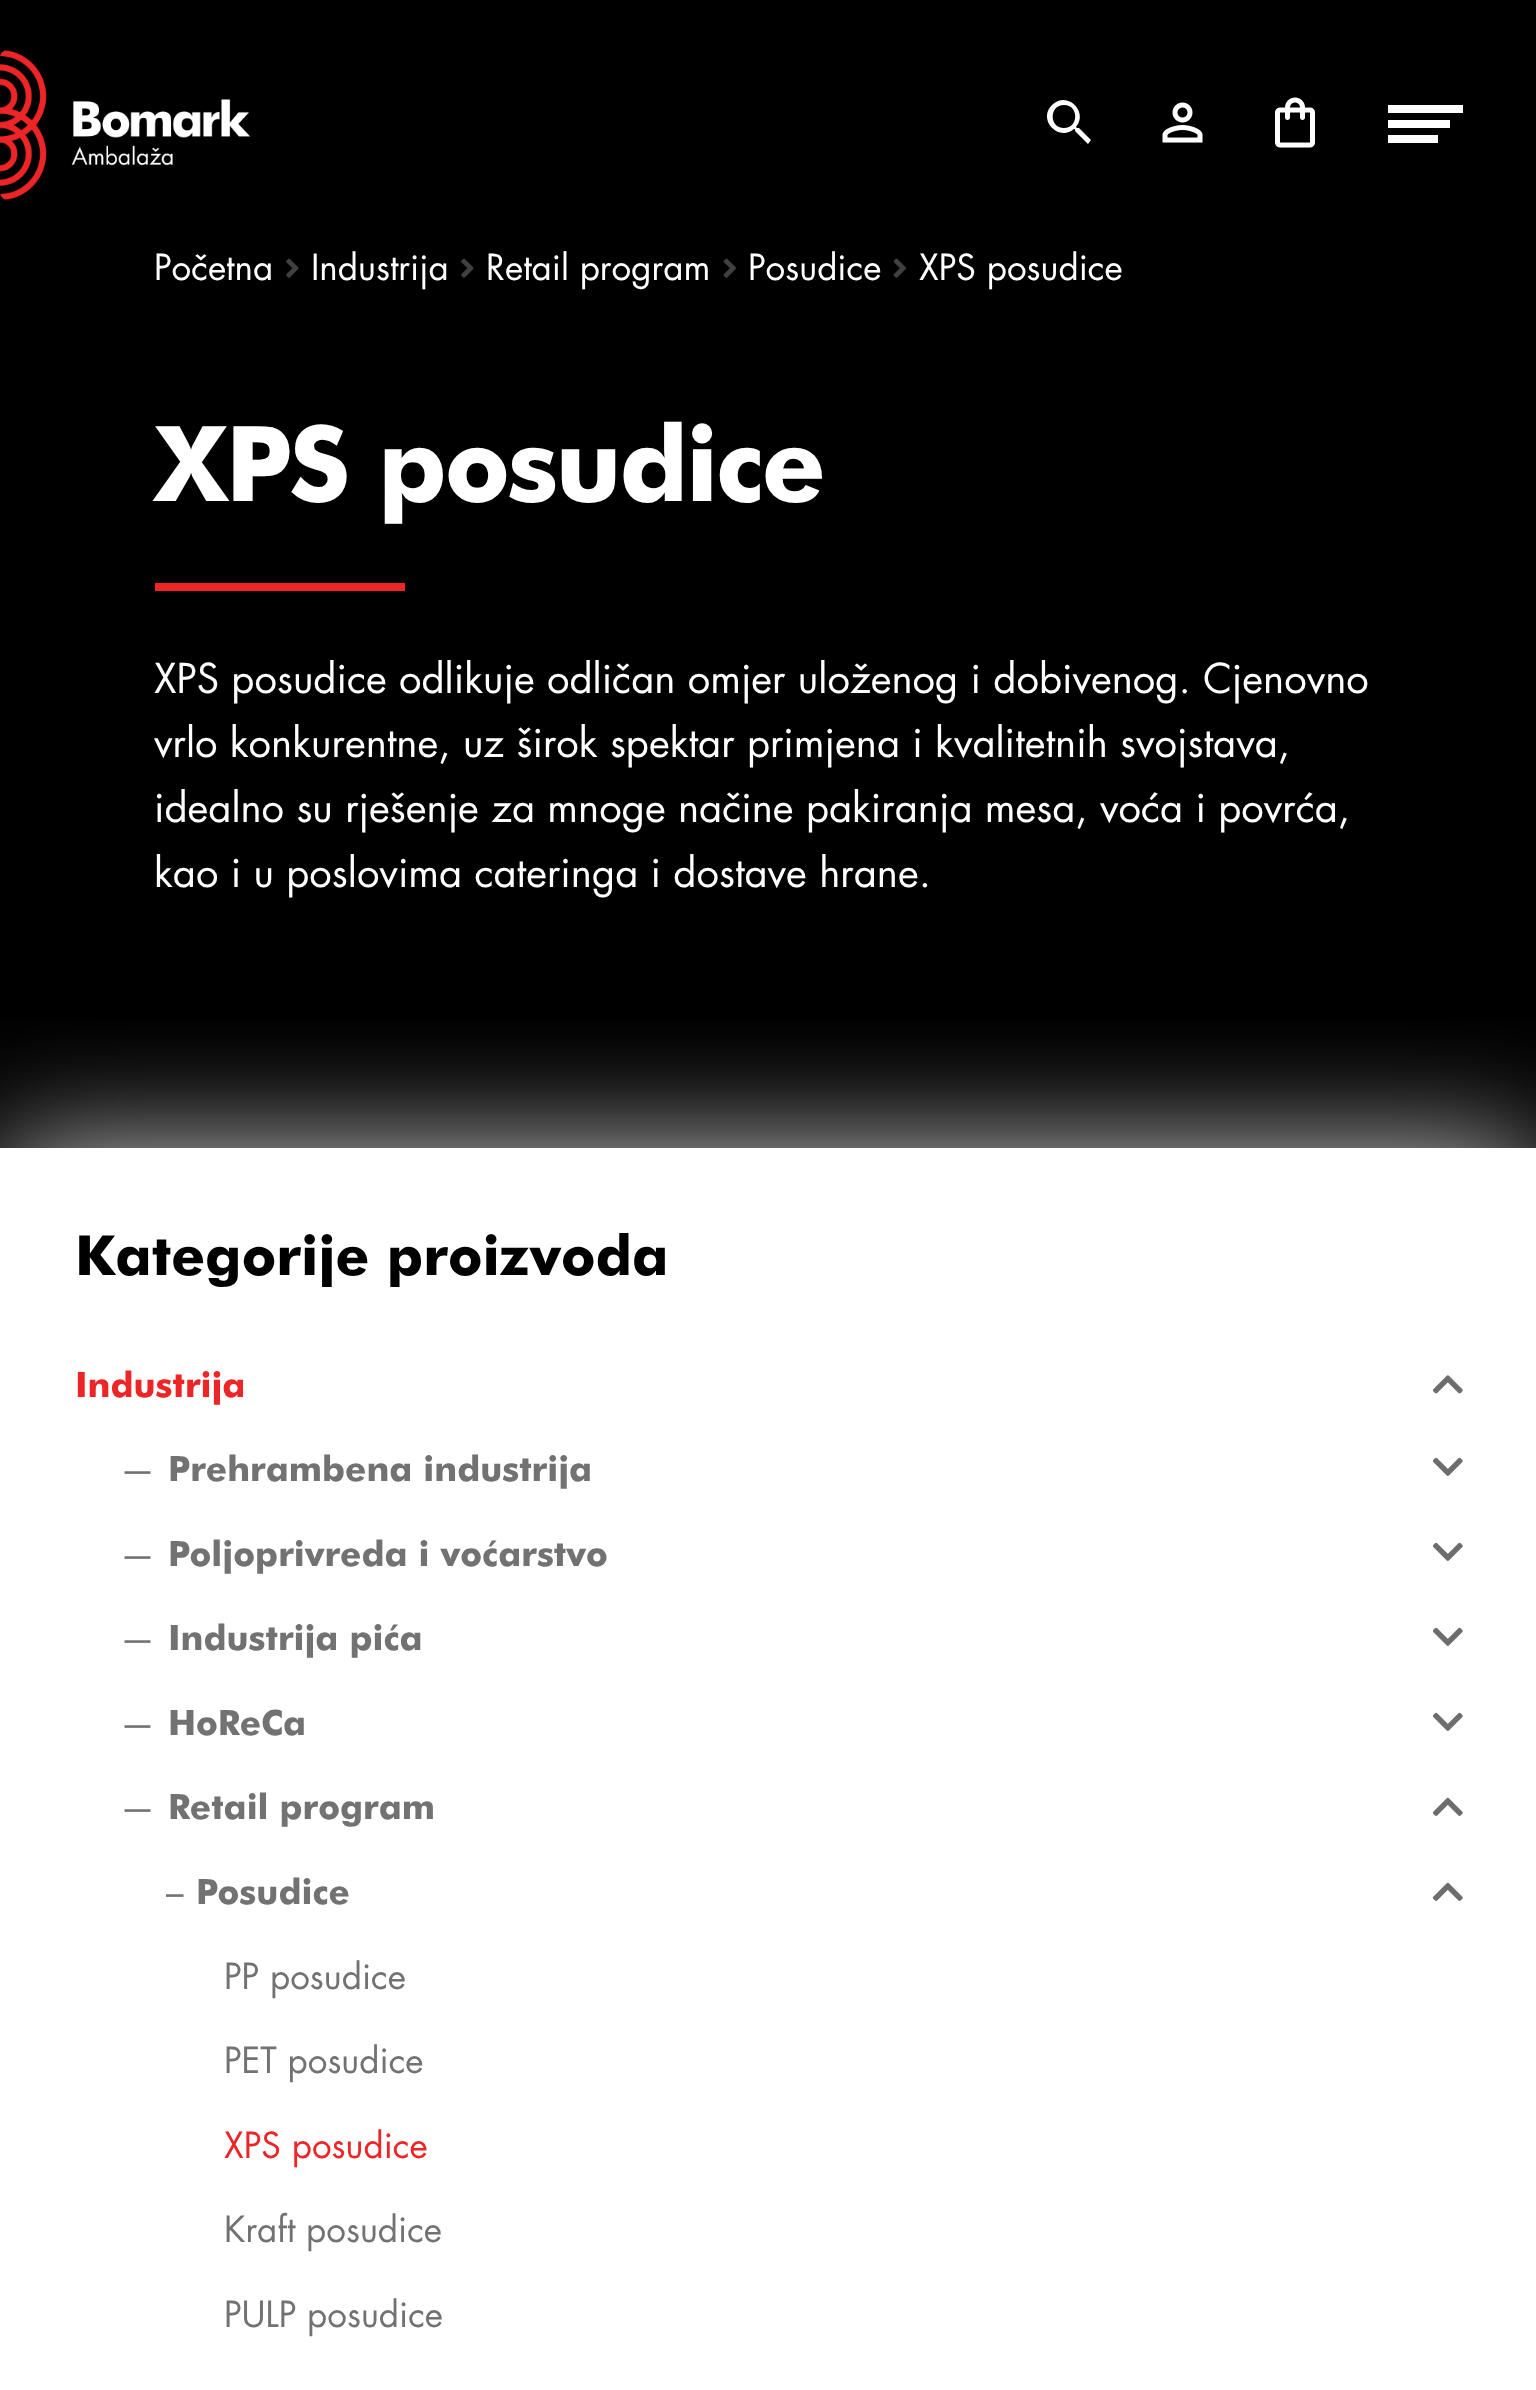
async function draw(canvas) {
  canvas.width = 1536;
  canvas.height = 2390;
  const ctx = canvas.getContext('2d');
  ctx.miterLimit = 4;
  ctx.fontKerning = 'normal';
  function label(s, x, y, font, color) {
    ctx.font = font;
    ctx.fillStyle = color;
    ctx.fillText(s, x, y);
  }
  function rect(x, y, w, h, color) {
    ctx.fillStyle = color;
    ctx.fillRect(x, y, w, h);
  }
  async function image(src, x, y, w, h) {
    const img = new Image();
    img.src = src;
    await img.decode();
    ctx.drawImage(img, x, y, w, h);
  }
  let path;

  rect(0, 0, 1536, 2390, '#fff');
  rect(0, 0, 1536, 1148, '#000');
  await image('assets/img1.png', 0, 50, 250, 150);
  ctx.fillStyle = '#fff';
  path = new Path2D('M1079 128H1077L1076 127C1089 112 1067 90 1052 105C1037 120 1059 142 1074 129H1075V131L1088 144L1091 140ZM1064 128C1049 128 1049 105 1064 105C1079 105 1079 128 1064 128Z');
  ctx.fill(path);
  await image('assets/img2.png', 1162, 102, 41, 41);
  await image('assets/img3.png', 1275, 97, 40, 51);
  rect(1388, 120, 62, 8, '#fff');
  rect(1388, 105, 75, 8, '#fff');
  rect(1388, 135, 50, 8, '#fff');
  label('Početna', 154, 280, '35px Futura', '#fff');
  await image('assets/img4.png', 286, 258, 13, 20);
  label('Industrija', 311, 280, '35px Futura', '#fff');
  await image('assets/img4.png', 461, 258, 13, 20);
  label('Retail program', 486, 280, '35px Futura', '#fff');
  await image('assets/img5.png', 723, 258, 13, 20);
  label('Posudice', 748, 280, '35px Futura', '#fff');
  await image('assets/img5.png', 893, 258, 13, 20);
  label('XPS posudice', 919, 280, '35px Futura', '#fff');
  ctx.letterSpacing = '-2.5px';
  label('XPS posudice', 154, 501, 'bold 104.75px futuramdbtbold', '#fff');
  rect(155, 583, 250, 8, '#ed2526');
  ctx.letterSpacing = '0px';
  label('XPS posudice odlikuje odličan omjer uloženog i dobivenog. Cjenovno', 154, 693, '40px Futura', '#fff');
  label('vrlo konkurentne, uz širok spektar primjena i kvalitetnih svojstava,', 154, 757, '40px Futura', '#fff');
  label('idealno su rješenje za mnoge načine pakiranja mesa, voća i povrća,', 154, 822, '40px Futura', '#fff');
  label('kao i u poslovima cateringa i dostave hrane.', 154, 887, '40px Futura', '#fff');
  ctx.save();
  ctx.beginPath();
  ctx.rect(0, 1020, 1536, 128);
  ctx.clip();
  ctx.fillStyle = '#ccc';
  ctx.filter = 'blur(62.5px)';
  ctx.beginPath();
  ctx.rect(0, 1148, 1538, 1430);
  ctx.fill();
  ctx.filter = 'none';
  ctx.restore();
  label('Kategorije proizvoda', 75, 1275, 'bold 55.4px futuramdbtbold', '#000');
  label('Industrija', 75, 1397, 'bold 35px futuramdbtbold', '#ed2526');
  await image('assets/img6.png', 1432, 1375, 31, 19);
  label('—', 120, 1481, '35px Futura', '#727272');
  label('Prehrambena industrija', 168, 1481, 'bold 35px futuramdbtbold', '#727272');
  await image('assets/img7.png', 1433, 1457, 30, 19);
  label('—', 120, 1566, '35px Futura', '#727272');
  label('Poljoprivreda i voćarstvo', 168, 1566, 'bold 35px futuramdbtbold', '#727272');
  await image('assets/img7.png', 1433, 1542, 30, 19);
  label('—', 120, 1650, '35px Futura', '#727272');
  label('Industrija pića', 168, 1650, 'bold 35px futuramdbtbold', '#727272');
  await image('assets/img7.png', 1433, 1627, 30, 19);
  label('—', 120, 1735, '35px Futura', '#727272');
  label('HoReCa', 168, 1735, 'bold 35px futuramdbtbold', '#727272');
  await image('assets/img7.png', 1433, 1712, 30, 19);
  label('—', 120, 1819, '35px Futura', '#727272');
  label('Retail program', 168, 1819, 'bold 35px futuramdbtbold', '#727272');
  await image('assets/img8.png', 1432, 1797, 31, 19);
  label('–', 166, 1904, '35px Futura', '#727272');
  label('Posudice', 196, 1904, 'bold 35px futuramdbtbold', '#727272');
  await image('assets/img8.png', 1432, 1882, 31, 19);
  label('PP posudice', 224, 1989, '35px Futura', '#727272');
  label('PET posudice', 224, 2073, '35px Futura', '#727272');
  label('XPS posudice', 224, 2158, '35px Futura', '#ed2526');
  label('Kraft posudice', 224, 2242, '35px Futura', '#727272');
  label('PULP posudice', 224, 2327, '35px Futura', '#727272');
}

draw(document.querySelector('canvas'));
